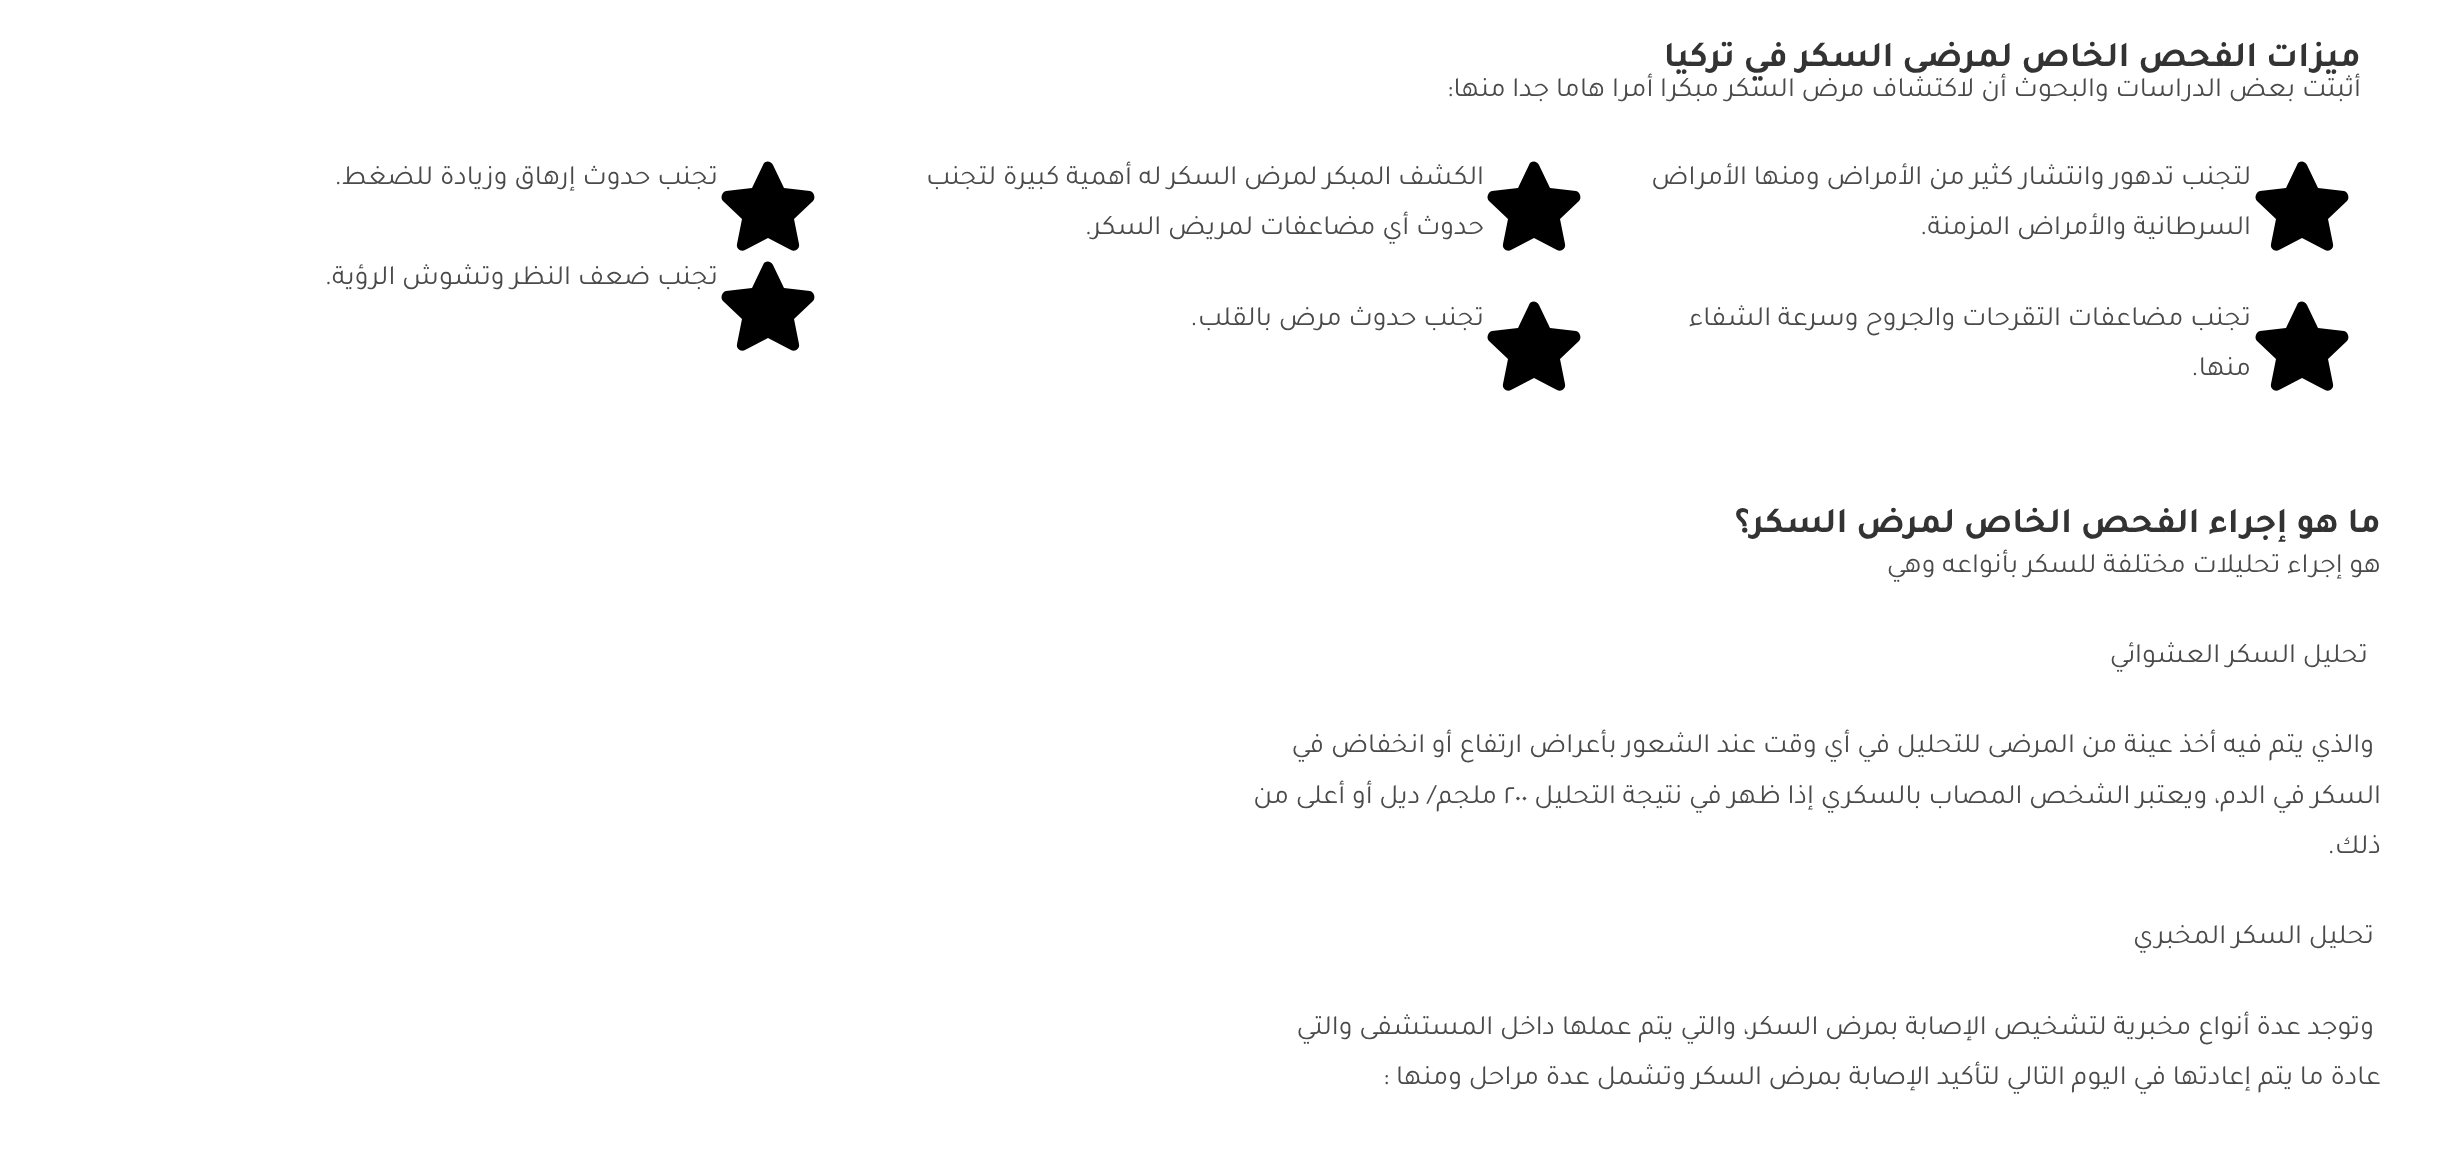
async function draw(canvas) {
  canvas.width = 2461;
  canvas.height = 1159;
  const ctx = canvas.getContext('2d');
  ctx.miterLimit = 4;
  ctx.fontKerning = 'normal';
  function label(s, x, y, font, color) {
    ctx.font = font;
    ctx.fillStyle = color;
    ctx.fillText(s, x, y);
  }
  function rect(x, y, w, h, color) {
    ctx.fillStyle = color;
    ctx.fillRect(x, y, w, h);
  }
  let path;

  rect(0, 0, 2461, 1159, '#fff');
  ctx.direction = 'rtl';
  label('ميزات الفحص الخاص لمرضى السكر في تركيا', 2361, 66, 'bold 36px Tajawal', '#333');
  label('أثبتت بعض الدراسات والبحوث أن لاكتشاف مرض السكر مبكرا أمرا هاما جدا منها:', 2361, 96, '28px Tajawal', '#4a4a4a');
  ctx.fillStyle = '#000';
  path = new Path2D('M2297 165L2286 188L2260 191C2256 192 2254 198 2257 201L2276 219L2271 244C2270 249 2275 252 2279 250L2302 238L2325 250C2329 252 2334 249 2333 244L2328 219L2347 201C2350 198 2348 192 2344 191L2318 188L2307 165C2305 161 2299 160 2297 165Z');
  ctx.fill(path);
  label('لتجنب تدهور وانتشار كثير من الأمراض ومنها الأمراض', 2251, 184, '28px Tajawal', '#4a4a4a');
  label('السرطانية والأمراض المزمنة.', 2251, 234, '28px Tajawal', '#4a4a4a');
  ctx.fillStyle = '#000';
  path = new Path2D('M2297 305L2286 328L2260 331C2256 332 2254 338 2257 341L2276 359L2271 384C2270 389 2275 392 2279 390L2302 378L2325 390C2329 392 2334 389 2333 384L2328 359L2347 341C2350 338 2348 332 2344 331L2318 328L2307 305C2305 301 2299 300 2297 305Z');
  ctx.fill(path);
  label('تجنب مضاعفات التقرحات والجروح وسرعة الشفاء', 2251, 325, '28px Tajawal', '#4a4a4a');
  label('منها.', 2251, 375, '28px Tajawal', '#4a4a4a');
  ctx.fillStyle = '#000';
  path = new Path2D('M1529 165L1518 188L1492 191C1488 192 1486 198 1489 201L1508 219L1503 244C1502 249 1507 252 1511 250L1534 238L1557 250C1561 252 1566 249 1565 244L1560 219L1579 201C1582 198 1580 192 1576 191L1550 188L1539 165C1537 161 1531 160 1529 165Z');
  ctx.fill(path);
  label('الكشف المبكر لمرض السكر له أهمية كبيرة لتجنب', 1484, 184, '28px Tajawal', '#4a4a4a');
  label('حدوث أي مضاعفات لمريض السكر.', 1484, 234, '28px Tajawal', '#4a4a4a');
  ctx.fillStyle = '#000';
  path = new Path2D('M1529 305L1518 328L1492 331C1488 332 1486 338 1489 341L1508 359L1503 384C1502 389 1507 392 1511 390L1534 378L1557 390C1561 392 1566 389 1565 384L1560 359L1579 341C1582 338 1580 332 1576 331L1550 328L1539 305C1537 301 1531 300 1529 305Z');
  ctx.fill(path);
  label('تجنب حدوث مرض بالقلب.', 1484, 325, '28px Tajawal', '#4a4a4a');
  ctx.fillStyle = '#000';
  path = new Path2D('M763 165L752 188L726 191C722 192 720 198 723 201L742 219L737 244C736 249 741 252 745 250L768 238L791 250C795 252 800 249 799 244L794 219L813 201C816 198 814 192 810 191L784 188L773 165C771 161 765 160 763 165Z');
  ctx.fill(path);
  label('تجنب حدوث إرهاق وزيادة للضغط.', 718, 184, '28px Tajawal', '#4a4a4a');
  ctx.fillStyle = '#000';
  path = new Path2D('M763 265L752 288L726 291C722 292 720 298 723 301L742 319L737 344C736 349 741 352 745 350L768 338L791 350C795 352 800 349 799 344L794 319L813 301C816 298 814 292 810 291L784 288L773 265C771 261 765 260 763 265Z');
  ctx.fill(path);
  label('تجنب ضعف النظر وتشوش الرؤية.', 718, 284, '28px Tajawal', '#4a4a4a');
  label('ما هو إجراء الفحص الخاص لمرض السكر؟', 2381, 532, 'bold 36px Tajawal', '#333');
  label('هو إجراء تحليلات مختلفة للسكر بأنواعه وهي', 2381, 572, '28px Tajawal', '#4a4a4a');
  label('تحليل السكر العشوائي', 2368, 662, '28px Tajawal', '#4a4a4a');
  label('والذي يتم فيه أخذ عينة من المرضى للتحليل في أي وقت عند الشعور بأعراض ارتفاع أو انخفاض في', 2374, 752, '28px Tajawal', '#4a4a4a');
  label('السكر في الدم، ويعتبر الشخص المصاب بالسكري إذا ظهر في نتيجة التحليل', 2381, 803, '28px Tajawal', '#4a4a4a');
  ctx.direction = 'ltr';
  label('٢٠٠', 1504, 803, '28px Tajawal', '#4a4a4a');
  ctx.direction = 'rtl';
  label('ملجم/ ديل أو أعلى من', 1497, 803, '28px Tajawal', '#4a4a4a');
  label('ذلك.', 2381, 853, '28px Tajawal', '#4a4a4a');
  label('تحليل السكر المخبري', 2374, 943, '28px Tajawal', '#4a4a4a');
  label('وتوجد عدة أنواع مخبرية لتشخيص الإصابة بمرض السكر، والتي يتم عملها داخل المستشفى والتي', 2374, 1034, '28px Tajawal', '#4a4a4a');
  label('عادة ما يتم إعادتها في اليوم التالي لتأكيد الإصابة بمرض السكر وتشمل عدة مراحل ومنها :', 2381, 1084, '28px Tajawal', '#4a4a4a');
}

draw(document.querySelector('canvas'));
